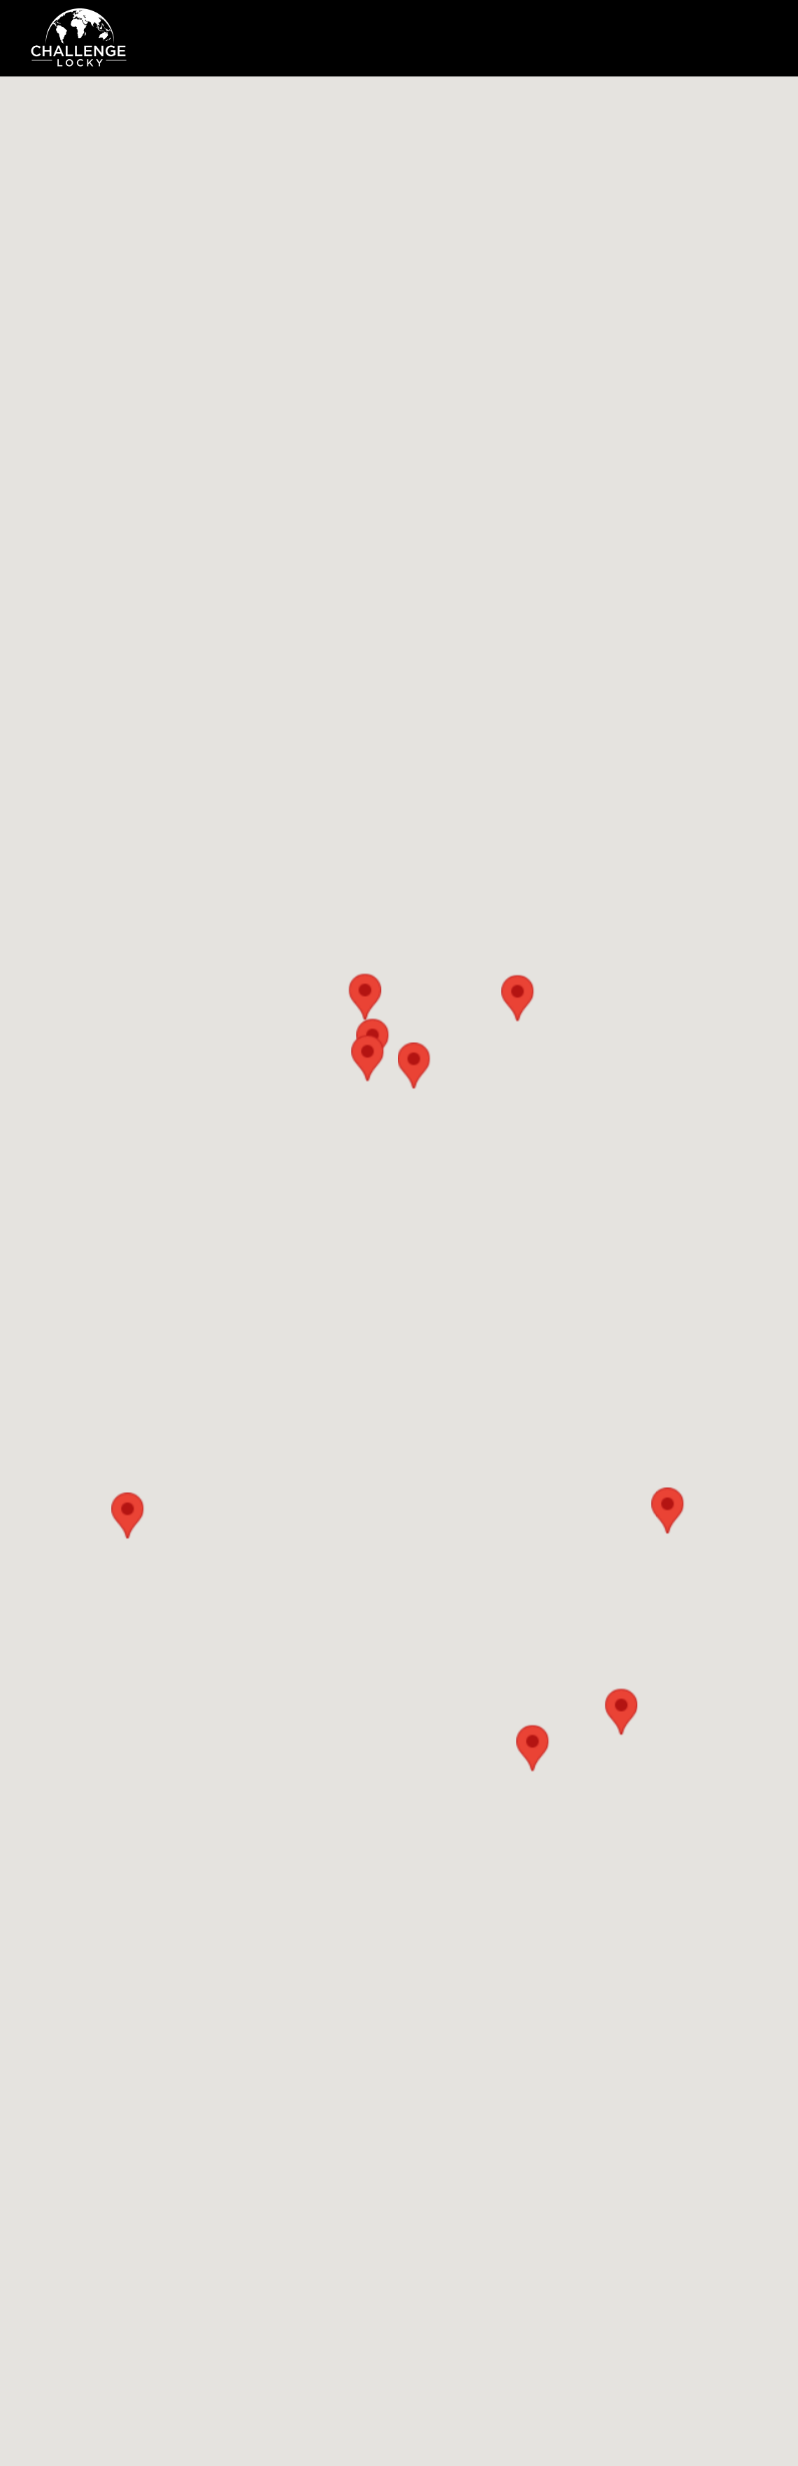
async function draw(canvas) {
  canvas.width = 798;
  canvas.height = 2466;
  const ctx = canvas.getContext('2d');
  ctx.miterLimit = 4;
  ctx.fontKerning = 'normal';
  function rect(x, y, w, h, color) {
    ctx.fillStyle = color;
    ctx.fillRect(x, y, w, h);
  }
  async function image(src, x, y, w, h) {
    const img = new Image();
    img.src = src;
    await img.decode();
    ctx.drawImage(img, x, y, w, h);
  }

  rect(0, 0, 798, 2466, '#000');
  await image('assets/img1.png', 30, 8, 97, 59);
  await image('assets/img2.png', 0, 76, 798, 2390);
}

draw(document.querySelector('canvas'));
